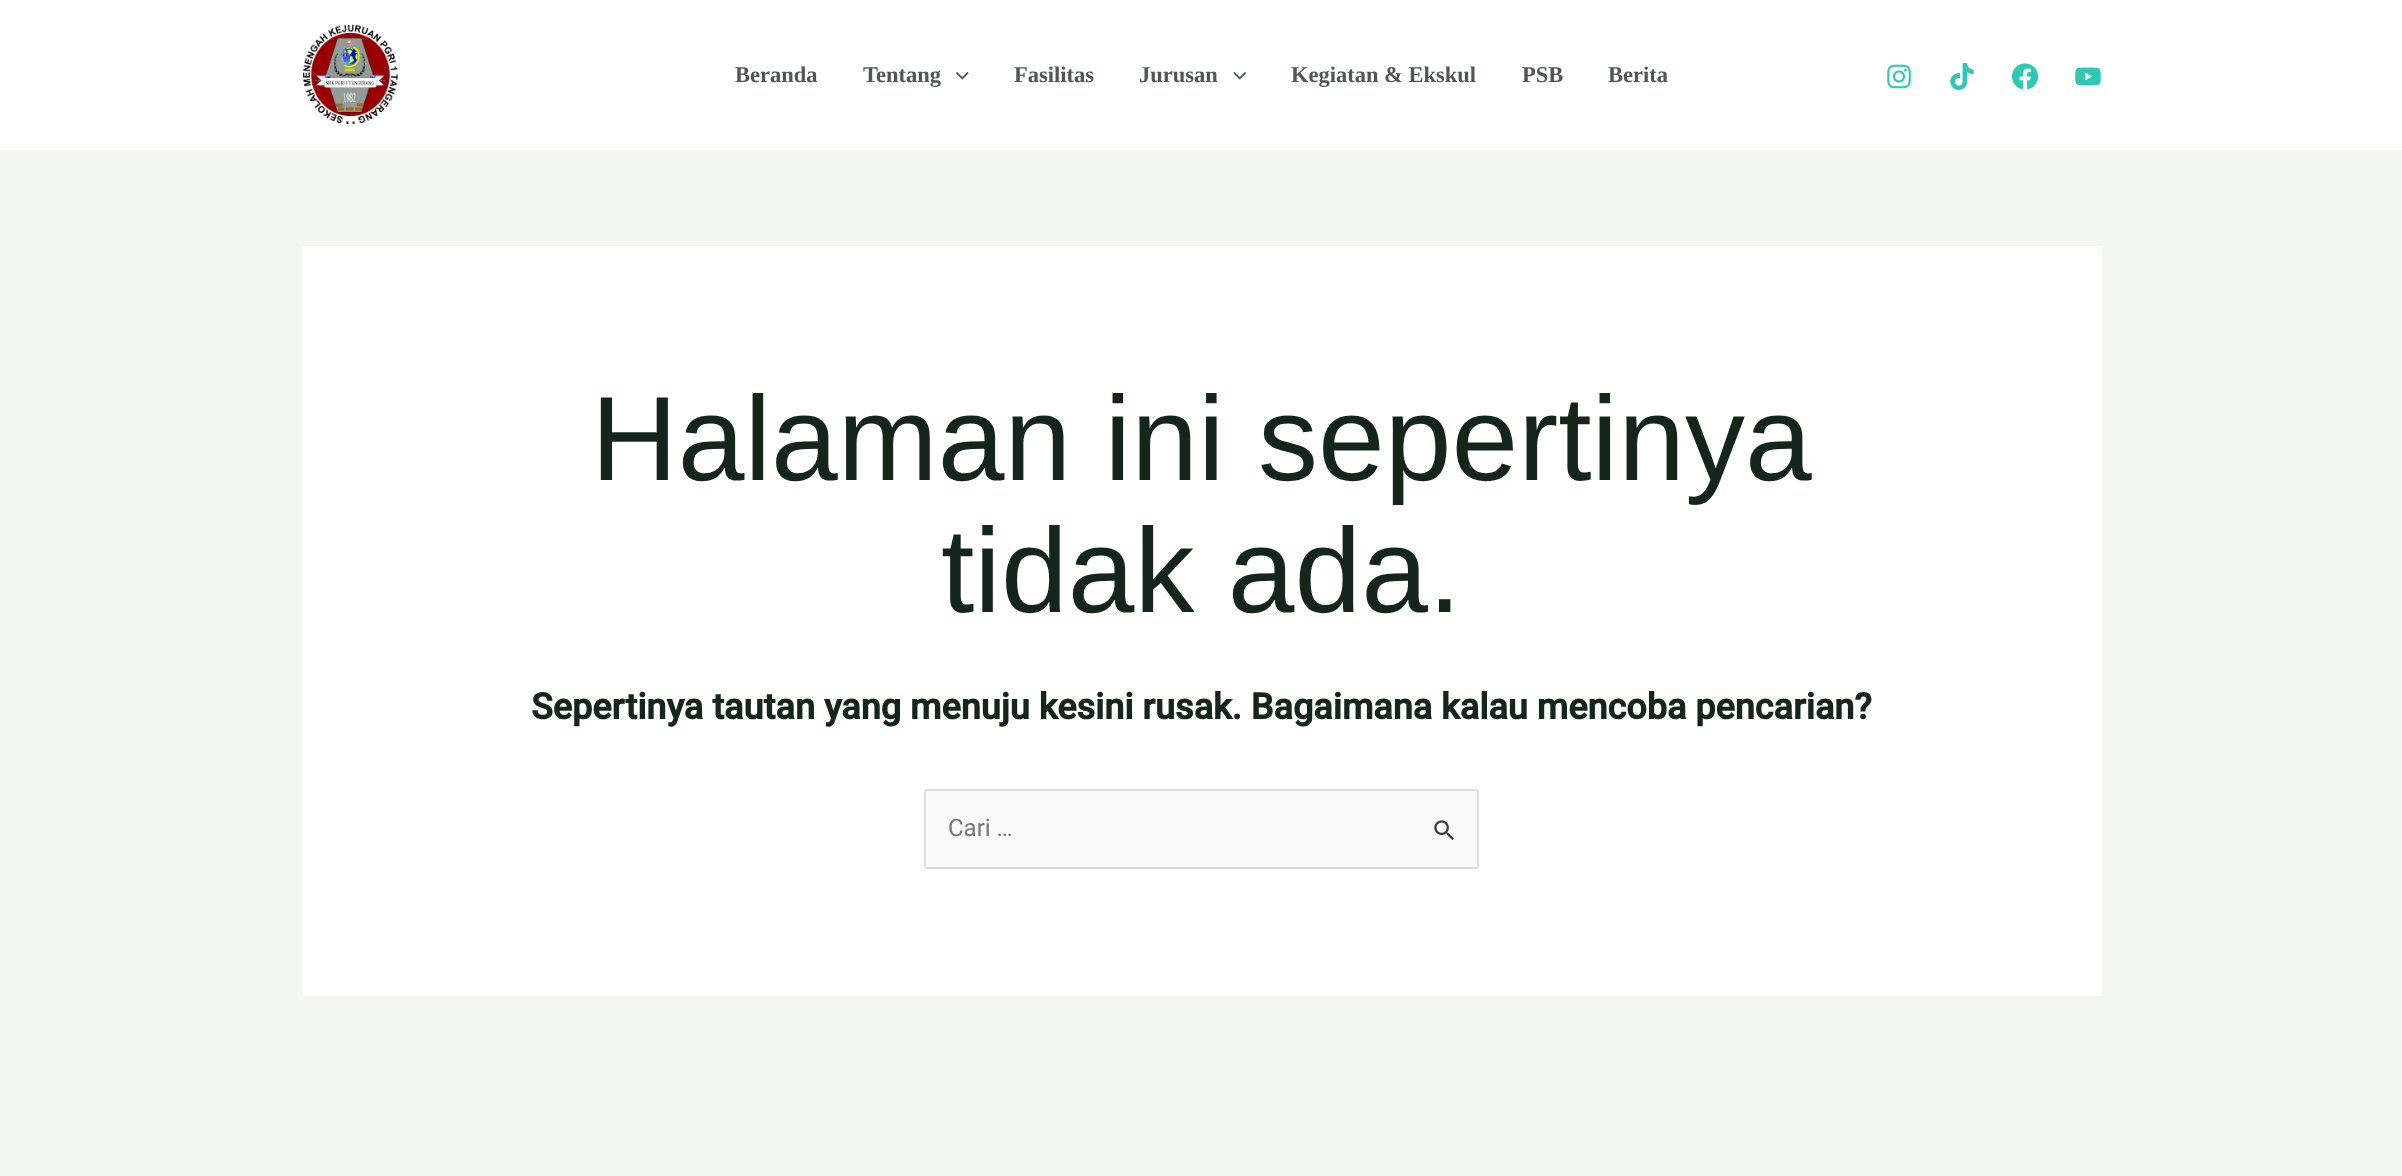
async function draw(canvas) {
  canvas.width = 2402;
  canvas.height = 1176;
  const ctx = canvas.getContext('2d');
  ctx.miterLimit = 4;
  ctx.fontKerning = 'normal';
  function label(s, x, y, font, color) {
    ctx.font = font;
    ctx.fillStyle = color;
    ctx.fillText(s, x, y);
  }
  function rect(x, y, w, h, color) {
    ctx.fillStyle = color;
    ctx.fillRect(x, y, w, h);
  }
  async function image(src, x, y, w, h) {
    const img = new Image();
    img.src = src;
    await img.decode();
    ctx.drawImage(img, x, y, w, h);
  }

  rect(0, 0, 2402, 1176, '#f3f6f3');
  rect(0, 0, 2402, 150, '#fff');
  await image('assets/img1.png', 303, 24, 95, 101);
  label('Beranda', 735, 82, 'bold 22.5px Liberation Serif', '#4f5655');
  label('Tentang', 863, 82, 'bold 22.5px Liberation Serif', '#4f5655');
  await image('assets/img2.png', 956, 72, 13, 8);
  label('Fasilitas', 1014, 82, 'bold 22.5px Liberation Serif', '#4f5655');
  label('Jurusan', 1139, 82, 'bold 22.5px Liberation Serif', '#4f5655');
  await image('assets/img3.png', 1233, 72, 14, 8);
  label('Kegiatan & Ekskul', 1291, 82, 'bold 22.5px Liberation Serif', '#4f5655');
  label('PSB', 1522, 82, 'bold 22.5px Liberation Serif', '#4f5655');
  label('Berita', 1608, 82, 'bold 22.5px Liberation Serif', '#4f5655');
  await image('assets/img4.png', 1887, 64, 24, 25);
  await image('assets/img5.png', 1950, 63, 24, 27);
  await image('assets/img6.png', 2012, 63, 27, 27);
  await image('assets/img7.png', 2075, 67, 26, 19);
  rect(302, 246, 1800, 750, '#fff');
  label('Halaman ini sepertinya', 591, 480, '120px Liberation Sans', '#14261c');
  label('tidak ada.', 941, 612, '120px Liberation Sans', '#14261c');
  label('Sepertinya tautan yang menuju kesini rusak. Bagaimana kalau mencoba pencarian?', 531, 719, 'bold 36px Roboto', '#14261c');
  ctx.fillStyle = '#fafafa';
  ctx.beginPath();
  ctx.roundRect(925, 790, 553, 78, 2);
  ctx.fill();
  ctx.strokeStyle = '#ddd';
  ctx.lineWidth = 2;
  ctx.stroke();
  label('Cari …', 948, 836, '24px Roboto', '#757575');
  await image('assets/img8.png', 1434, 820, 20, 20);
}

draw(document.querySelector('canvas'));
